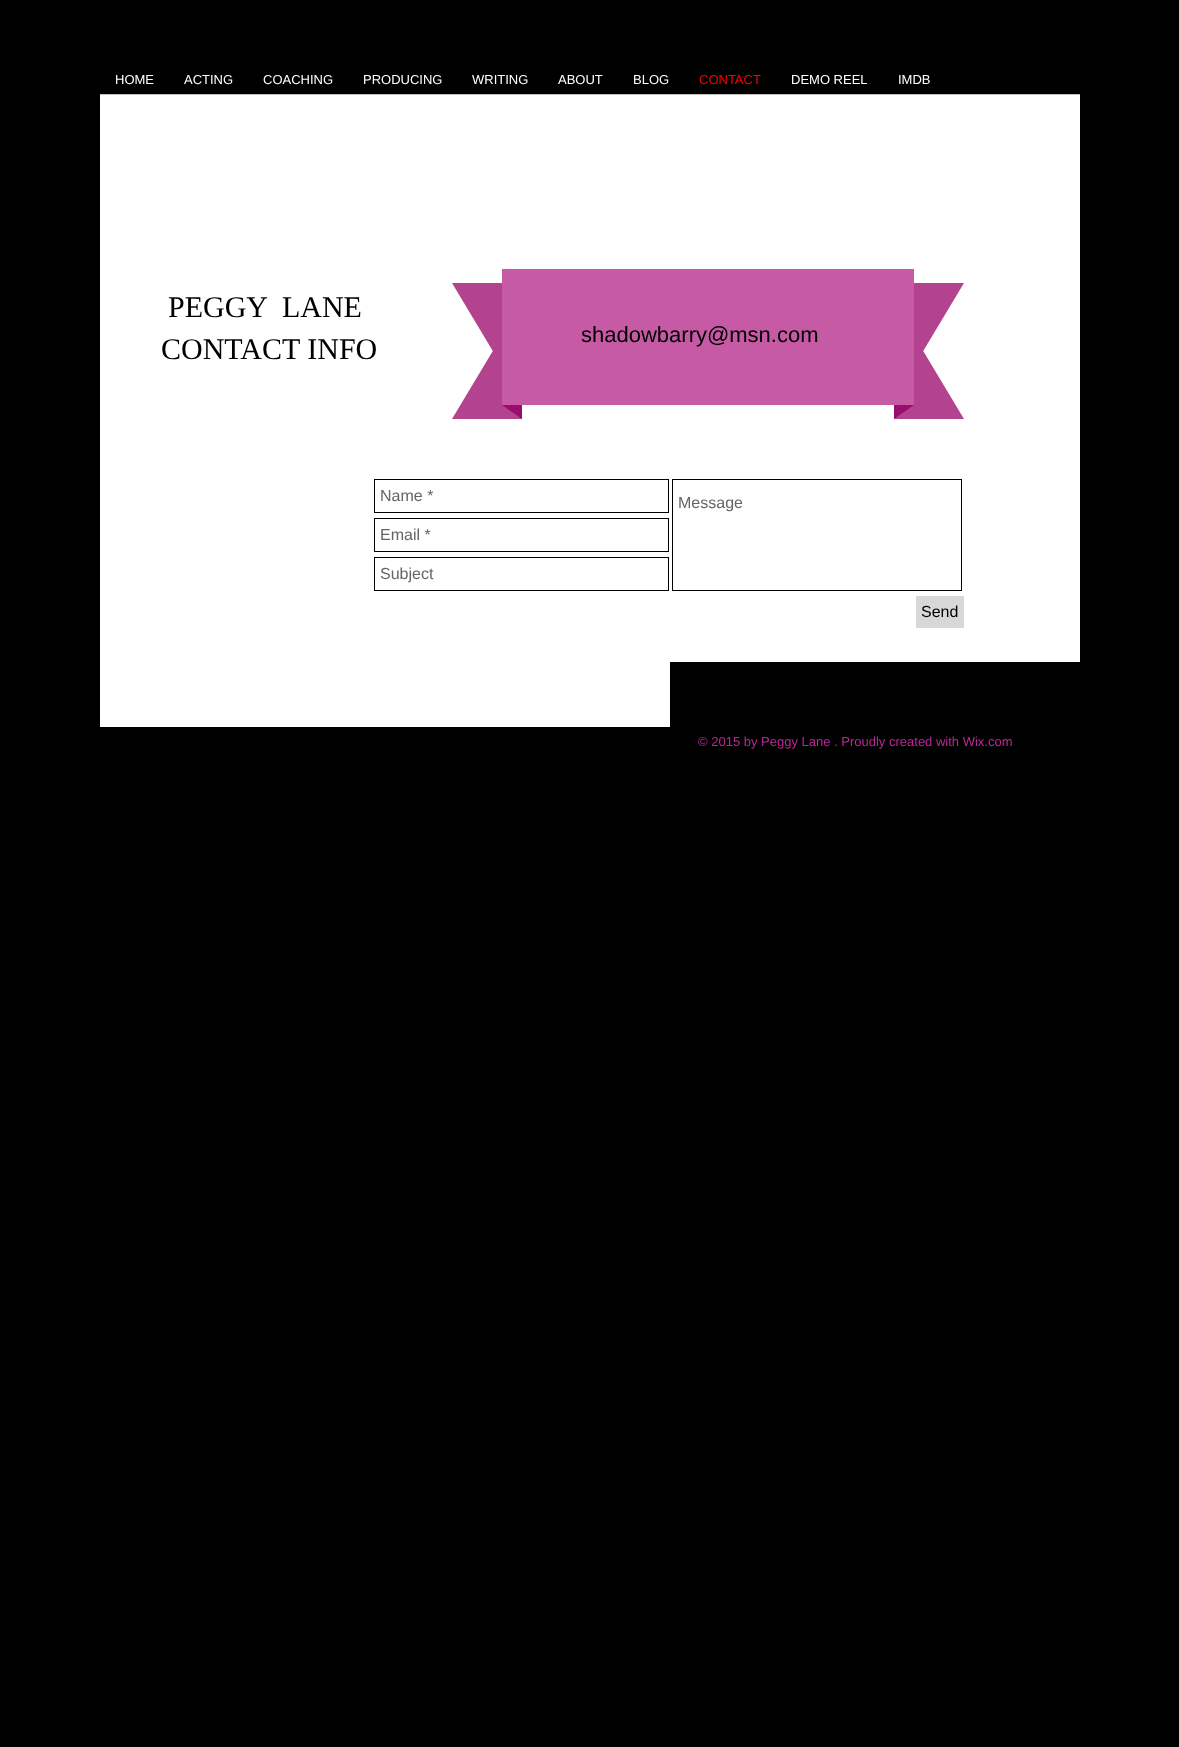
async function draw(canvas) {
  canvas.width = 1179;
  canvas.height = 1747;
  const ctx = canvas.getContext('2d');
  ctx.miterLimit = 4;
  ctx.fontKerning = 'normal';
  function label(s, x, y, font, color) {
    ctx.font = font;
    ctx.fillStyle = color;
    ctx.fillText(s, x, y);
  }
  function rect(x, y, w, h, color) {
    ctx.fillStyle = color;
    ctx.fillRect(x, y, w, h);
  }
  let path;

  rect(0, 0, 1179, 1747, '#000');
  label('HOME', 115, 84, '13px Liberation Sans', '#fff');
  label('ACTING', 184, 84, '13px Liberation Sans', '#fff');
  label('COACHING', 263, 84, '13px Liberation Sans', '#fff');
  label('PRODUCING', 363, 84, '13px Liberation Sans', '#fff');
  label('WRITING', 472, 84, '13px Liberation Sans', '#fff');
  label('ABOUT', 558, 84, '13px Liberation Sans', '#fff');
  label('BLOG', 633, 84, '13px Liberation Sans', '#fff');
  label('CONTACT', 699, 84, '13px Liberation Sans', '#f00');
  label('DEMO REEL', 791, 84, '13px Liberation Sans', '#fff');
  label('IMDB', 898, 84, '13px Liberation Sans', '#fff');
  rect(100, 94, 980, 1, '#bfbfbf');
  rect(100, 95, 980, 632, '#fff');
  label('PEGGY  LANE', 168, 317, '30px Liberation Serif', '#000');
  label('CONTACT INFO', 161, 359, '30px Liberation Serif', '#000');
  ctx.fillStyle = '#b3438f';
  path = new Path2D('M452 283H522V383H512Z');
  ctx.fill(path);
  path = new Path2D('M894 283H964L904 383H894Z');
  ctx.fill(path);
  ctx.save();
  ctx.beginPath();
  ctx.rect(452, 351, 512, 68);
  ctx.clip();
  path = new Path2D('M522 419H452L512 319H522Z');
  ctx.fill(path);
  path = new Path2D('M964 419H894V319H904Z');
  ctx.fill(path);
  ctx.restore();
  rect(502, 269, 412, 136, '#c65aa5');
  label('shadowbarry@msn.com', 581, 342, '22px Liberation Sans', '#000');
  ctx.fillStyle = '#990e6d';
  path = new Path2D('M522 405V419L502 405Z');
  ctx.fill(path);
  path = new Path2D('M894 419V405H914Z');
  ctx.fill(path);
  ctx.strokeStyle = '#000';
  ctx.strokeRect(374.5, 479.5, 294, 33);
  label('Name *', 380, 501, '16px Liberation Sans', '#656565');
  ctx.strokeRect(672.5, 479.5, 289, 111);
  label('Message', 678, 508, '16px Liberation Sans', '#656565');
  ctx.strokeRect(374.5, 518.5, 294, 33);
  label('Email *', 380, 540, '16px Liberation Sans', '#656565');
  ctx.strokeRect(374.5, 557.5, 294, 33);
  label('Subject', 380, 579, '16px Liberation Sans', '#656565');
  rect(916, 596, 48, 32, '#d8d8d8');
  label('Send', 921, 617, '16px Liberation Sans', '#000');
  rect(670, 662, 410, 65, '#000');
  label('© 2015 by Peggy Lane . Proudly created with Wix.com', 698, 746, '13px Liberation Sans', '#bf2499');
}

draw(document.querySelector('canvas'));
